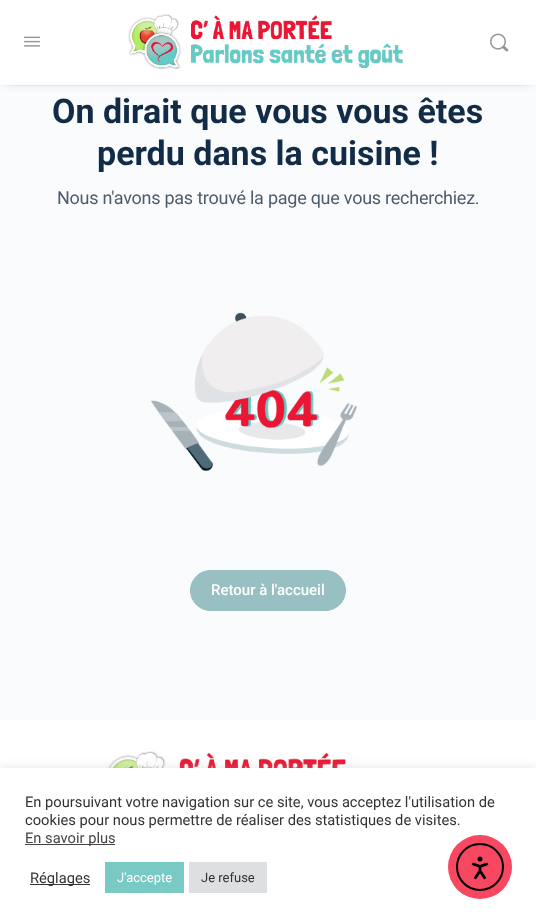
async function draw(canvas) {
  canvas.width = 536;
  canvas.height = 923;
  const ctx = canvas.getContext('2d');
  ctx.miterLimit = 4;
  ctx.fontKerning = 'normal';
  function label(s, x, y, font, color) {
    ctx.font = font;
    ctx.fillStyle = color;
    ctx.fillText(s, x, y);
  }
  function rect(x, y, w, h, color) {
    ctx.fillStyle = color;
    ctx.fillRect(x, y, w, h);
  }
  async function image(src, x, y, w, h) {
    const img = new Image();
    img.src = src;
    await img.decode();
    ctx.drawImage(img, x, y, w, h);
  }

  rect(0, 0, 536, 923, '#fafbfd');
  ctx.fillStyle = '#41476c40';
  ctx.filter = 'blur(5px)';
  ctx.beginPath();
  ctx.rect(7, 12, 522, 71);
  ctx.fill();
  ctx.filter = 'none';
  rect(0, 85, 536, 1, '#8b8d9d0d');
  rect(0, 0, 536, 85, '#fff');
  await image('assets/img1.png', 24, 36, 16, 11);
  await image('assets/img2.png', 128, 14, 275, 56);
  await image('assets/img3.png', 490, 33, 19, 19);
  label('On dirait que vous vous êtes', 52, 123, 'bold 34px Roboto', '#122b46');
  label('perdu dans la cuisine !', 97, 165, 'bold 34px Roboto', '#122b46');
  ctx.letterSpacing = '-0.25px';
  label('Nous n\'avons pas trouvé la page que vous recherchiez.', 57, 204, '18px Roboto', '#4d5c6d');
  await image('assets/img4.png', 151, 312, 206, 159);
  ctx.fillStyle = '#98bfc2';
  ctx.beginPath();
  ctx.roundRect(190.5, 570.5, 155, 40, 20);
  ctx.fill();
  ctx.strokeStyle = '#98bfc2';
  ctx.stroke();
  ctx.letterSpacing = '0px';
  label('Retour à l\'accueil', 211, 595, '500 15px Roboto', '#fff');
  rect(0, 720, 536, 48, '#fff');
  await image('assets/img5.png', 108, 751, 238, 17);
  ctx.fillStyle = '#acabab4d';
  ctx.filter = 'blur(5px)';
  ctx.beginPath();
  ctx.rect(0, 767, 536, 155);
  ctx.fill();
  ctx.filter = 'none';
  rect(0, 768, 536, 155, '#fff');
  label('En poursuivant votre navigation sur ce site, vous acceptez l\'utilisation de', 25, 807, '14.7px Roboto', '#333');
  label('cookies pour nous permettre de réaliser des statistiques de visites.', 25, 825, '14.7px Roboto', '#333');
  rect(25, 844, 90, 1, '#444');
  label('En savoir plus', 25, 843, '14.7px Roboto', '#444');
  rect(30, 884, 60, 1, '#333');
  label('Réglages', 30, 883, '14.7px Roboto', '#333');
  rect(105, 862, 79, 31, '#79cac5');
  label('J\'accepte', 117, 882, '13px Roboto', '#fff');
  rect(189, 862, 78, 31, '#dedfe0');
  label('Je refuse', 201, 882, '13px Roboto', '#333');
  ctx.fillStyle = '#f74761';
  ctx.beginPath();
  ctx.arc(480, 867, 32, 0, 2 * Math.PI);
  ctx.fill();
  ctx.beginPath();
  ctx.arc(480, 867, 23, 0, 2 * Math.PI);
  ctx.strokeStyle = '#000';
  ctx.lineWidth = 2;
  ctx.stroke();
  await image('assets/img6.png', 471, 856, 18, 24);
}

draw(document.querySelector('canvas'));
